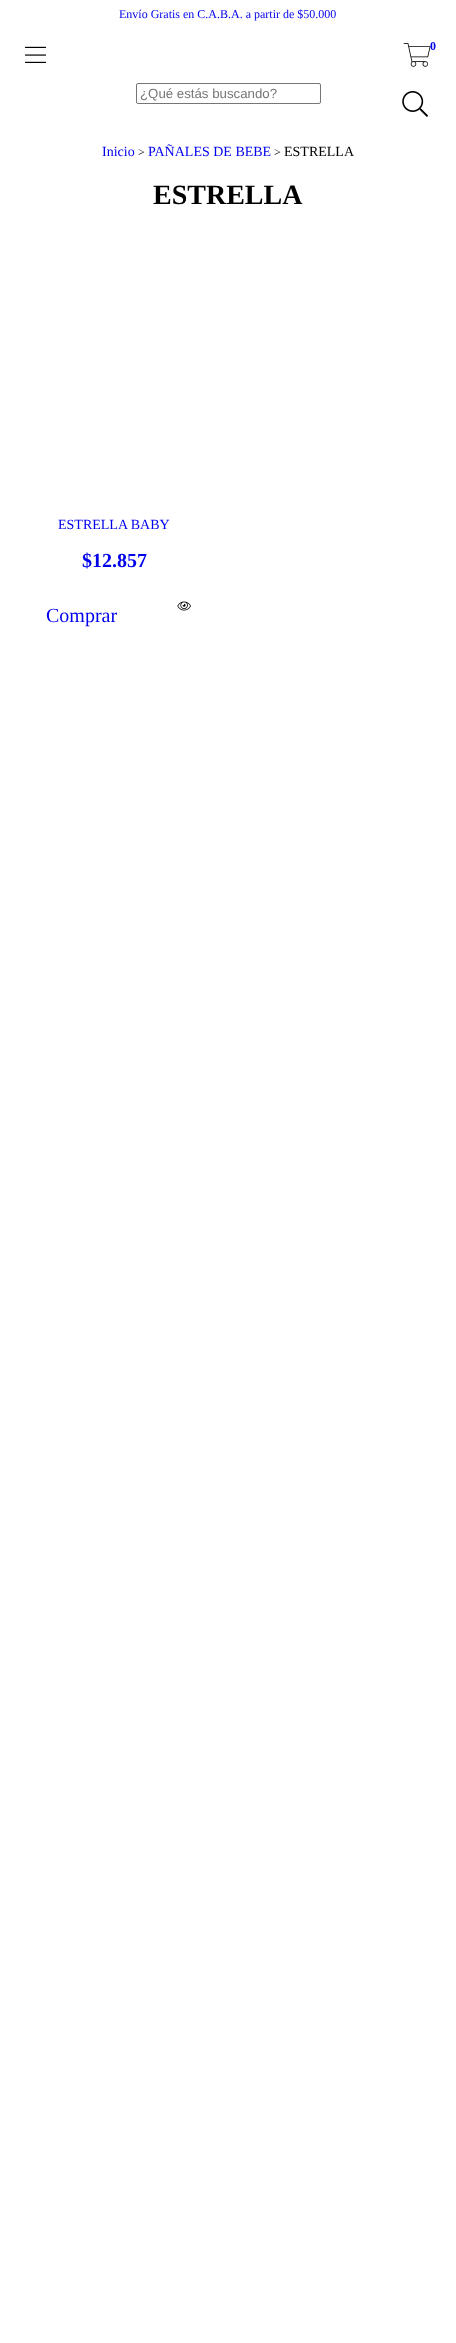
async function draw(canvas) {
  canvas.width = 456;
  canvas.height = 2343;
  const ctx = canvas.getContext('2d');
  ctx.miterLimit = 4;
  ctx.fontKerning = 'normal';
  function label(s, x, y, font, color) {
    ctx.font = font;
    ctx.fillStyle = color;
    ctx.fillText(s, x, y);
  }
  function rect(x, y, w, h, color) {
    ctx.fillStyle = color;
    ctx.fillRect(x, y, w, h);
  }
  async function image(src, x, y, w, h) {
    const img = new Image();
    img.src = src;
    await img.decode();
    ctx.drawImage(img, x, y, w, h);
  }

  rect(0, 0, 456, 2343, '#fff');
  label('Envío Gratis en C.A.B.A. a partir de $50.000', 119, 18, '12px Liberation Serif', '#00e');
  await image('assets/img1.png', 25, 46, 21, 17);
  await image('assets/img2.png', 403, 43, 28, 24);
  label('0', 430, 50, 'bold 12px Liberation Serif', '#00e');
  ctx.beginPath();
  ctx.roundRect(136.5, 83.5, 184, 20, 1.5);
  ctx.strokeStyle = '#767676';
  ctx.stroke();
  label('¿Qué estás buscando?', 140, 98, '13.25px Liberation Sans', '#757575');
  await image('assets/img3.png', 402, 91, 26, 26);
  label('Inicio', 102, 156, '14px Liberation Serif', '#00e');
  label('>', 138, 156, '12px Liberation Serif', '#000');
  label('PAÑALES DE BEBE', 148, 156, '14px Liberation Serif', '#00e');
  label('>', 274, 156, '12px Liberation Serif', '#000');
  label('ESTRELLA', 284, 156, '14px Liberation Serif', '#000');
  label('ESTRELLA', 153, 204, 'bold 28px Liberation Serif', '#000');
  label('ESTRELLA BABY', 58, 529, '14px Liberation Serif', '#00e');
  label('$12.857', 82, 567, 'bold 20px Liberation Serif', '#00e');
  await image('assets/img4.png', 177, 601, 14, 10);
  label('Comprar', 46, 622, '20px Liberation Serif', '#00e');
}

draw(document.querySelector('canvas'));
